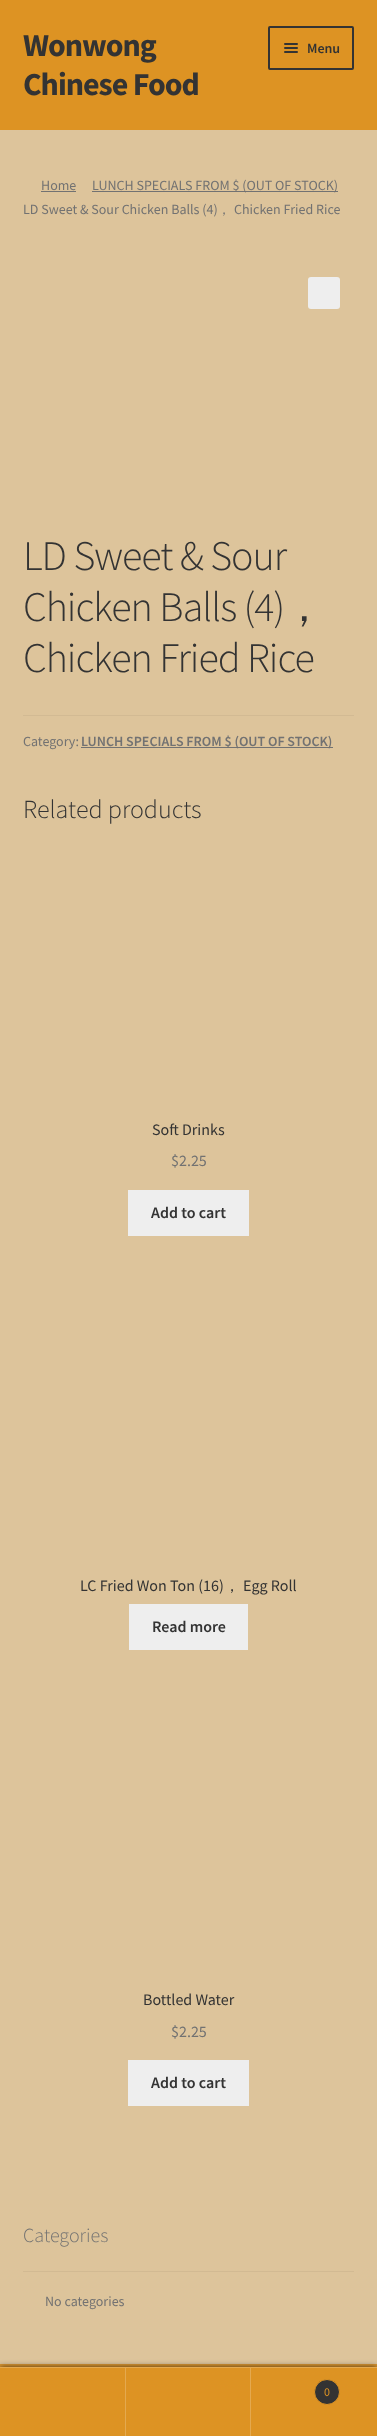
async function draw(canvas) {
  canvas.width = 377;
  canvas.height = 2436;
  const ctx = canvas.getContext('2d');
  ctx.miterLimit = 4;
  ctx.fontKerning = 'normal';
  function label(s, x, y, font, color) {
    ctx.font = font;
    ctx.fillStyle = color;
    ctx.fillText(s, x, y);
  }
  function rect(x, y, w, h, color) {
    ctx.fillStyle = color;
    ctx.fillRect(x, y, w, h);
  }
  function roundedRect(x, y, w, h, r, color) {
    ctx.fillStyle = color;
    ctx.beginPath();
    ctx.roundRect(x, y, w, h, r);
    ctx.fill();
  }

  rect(0, 0, 377, 2436, '#ddc49b');
  rect(0, 0, 377, 130, '#dd9323');
  ctx.letterSpacing = '-1px';
  label('Wonwong', 23, 56, 'bold 32px Source Sans Pro', '#333');
  label('Chinese Food', 23, 95, 'bold 32px Source Sans Pro', '#333');
  ctx.beginPath();
  ctx.roundRect(269, 27, 84, 42, 1);
  ctx.strokeStyle = '#333';
  ctx.lineWidth = 2;
  ctx.stroke();
  roundedRect(284, 43, 14, 2, 1, '#333');
  roundedRect(284, 47, 14, 2, 1, '#333');
  ctx.letterSpacing = '0px';
  label('Menu', 307, 53, '600 14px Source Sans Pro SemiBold', '#333');
  roundedRect(284, 51, 14, 2, 1, '#333');
  label('Home', 41, 190, '14px Source Sans Pro', '#727272');
  rect(41, 191, 35, 1, '#727272');
  rect(92, 191, 246, 1, '#727272');
  label('LUNCH SPECIALS FROM $ (OUT OF STOCK)', 92, 190, '14px Source Sans Pro', '#727272');
  label('LD Sweet & Sour Chicken Balls (4)', 23, 214, '14px Source Sans Pro', '#727272');
  label('，', 217, 214, '500 14px WenQuanYi Zen Hei', '#727272');
  label('Chicken Fried Rice', 234, 214, '14px Source Sans Pro', '#727272');
  roundedRect(308, 277, 32, 32, 3, '#eee');
  ctx.letterSpacing = '-1px';
  label('LD Sweet & Sour', 23, 570, '300 42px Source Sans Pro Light', '#333');
  label('Chicken Balls (4)', 23, 621, '300 42px Source Sans Pro Light', '#333');
  label('，', 283, 621, '500 42px WenQuanYi Zen Hei', '#333');
  label('Chicken Fried Rice', 23, 672, '300 42px Source Sans Pro Light', '#333');
  rect(23, 715, 331, 1, '#d2ba93');
  ctx.letterSpacing = '0px';
  label('Category:', 23, 746, '14px Source Sans Pro', '#727272');
  rect(81, 747, 252, 1, '#727272');
  label('LUNCH SPECIALS FROM $ (OUT OF STOCK)', 81, 746, '600 14px Source Sans Pro SemiBold', '#727272');
  label('Related products', 23, 818, '300 26px Source Sans Pro Light', '#333');
  label('Soft Drinks', 152, 1135, '16px Source Sans Pro', '#333');
  label('$2.25', 171, 1166, '16px Source Sans Pro', '#727272');
  rect(128, 1190, 121, 46, '#eee');
  label('Add to cart', 151, 1218, '600 16px Source Sans Pro SemiBold', '#333');
  label('LC Fried Won Ton (16)', 80, 1591, '16px Source Sans Pro', '#333');
  label('，', 224, 1591, '500 16px WenQuanYi Zen Hei', '#333');
  label('Egg Roll', 243, 1591, '16px Source Sans Pro', '#333');
  rect(129, 1604, 119, 46, '#eee');
  label('Read more', 152, 1632, '600 16px Source Sans Pro SemiBold', '#333');
  label('Bottled Water', 143, 2005, '16px Source Sans Pro', '#333');
  label('$2.25', 171, 2037, '16px Source Sans Pro', '#727272');
  rect(128, 2060, 121, 46, '#eee');
  label('Add to cart', 151, 2088, '600 16px Source Sans Pro SemiBold', '#333');
  rect(23, 2271, 331, 1, '#d2ba93');
  label('Categories', 23, 2242, '300 20px Source Sans Pro Light', '#727272');
  label('No categories', 45, 2306, '14px Source Sans Pro', '#727272');
  rect(0, 2364, 377, 3, '#d93');
  ctx.fillStyle = '#000000b3';
  ctx.filter = 'blur(3px)';
  ctx.beginPath();
  ctx.rect(0, 2367, 377, 69);
  ctx.fill();
  ctx.filter = 'none';
  rect(0, 2367, 377, 1, '#e4a94f');
  rect(0, 2368, 125, 68, '#dd9323');
  rect(125, 2368, 1, 68, '#e4a94f');
  rect(126, 2368, 124, 68, '#dd9323');
  rect(250, 2368, 1, 68, '#e4a94f');
  rect(251, 2368, 126, 68, '#dd9323');
  ctx.fillStyle = '#333';
  ctx.beginPath();
  ctx.arc(327, 2392, 12.5, 0, 2 * Math.PI);
  ctx.fill();
  ctx.strokeStyle = '#dd9323';
  ctx.lineWidth = 1;
  ctx.stroke();
  label('0', 324, 2396, '12px Source Sans Pro', '#dd9323');
}

draw(document.querySelector('canvas'));
